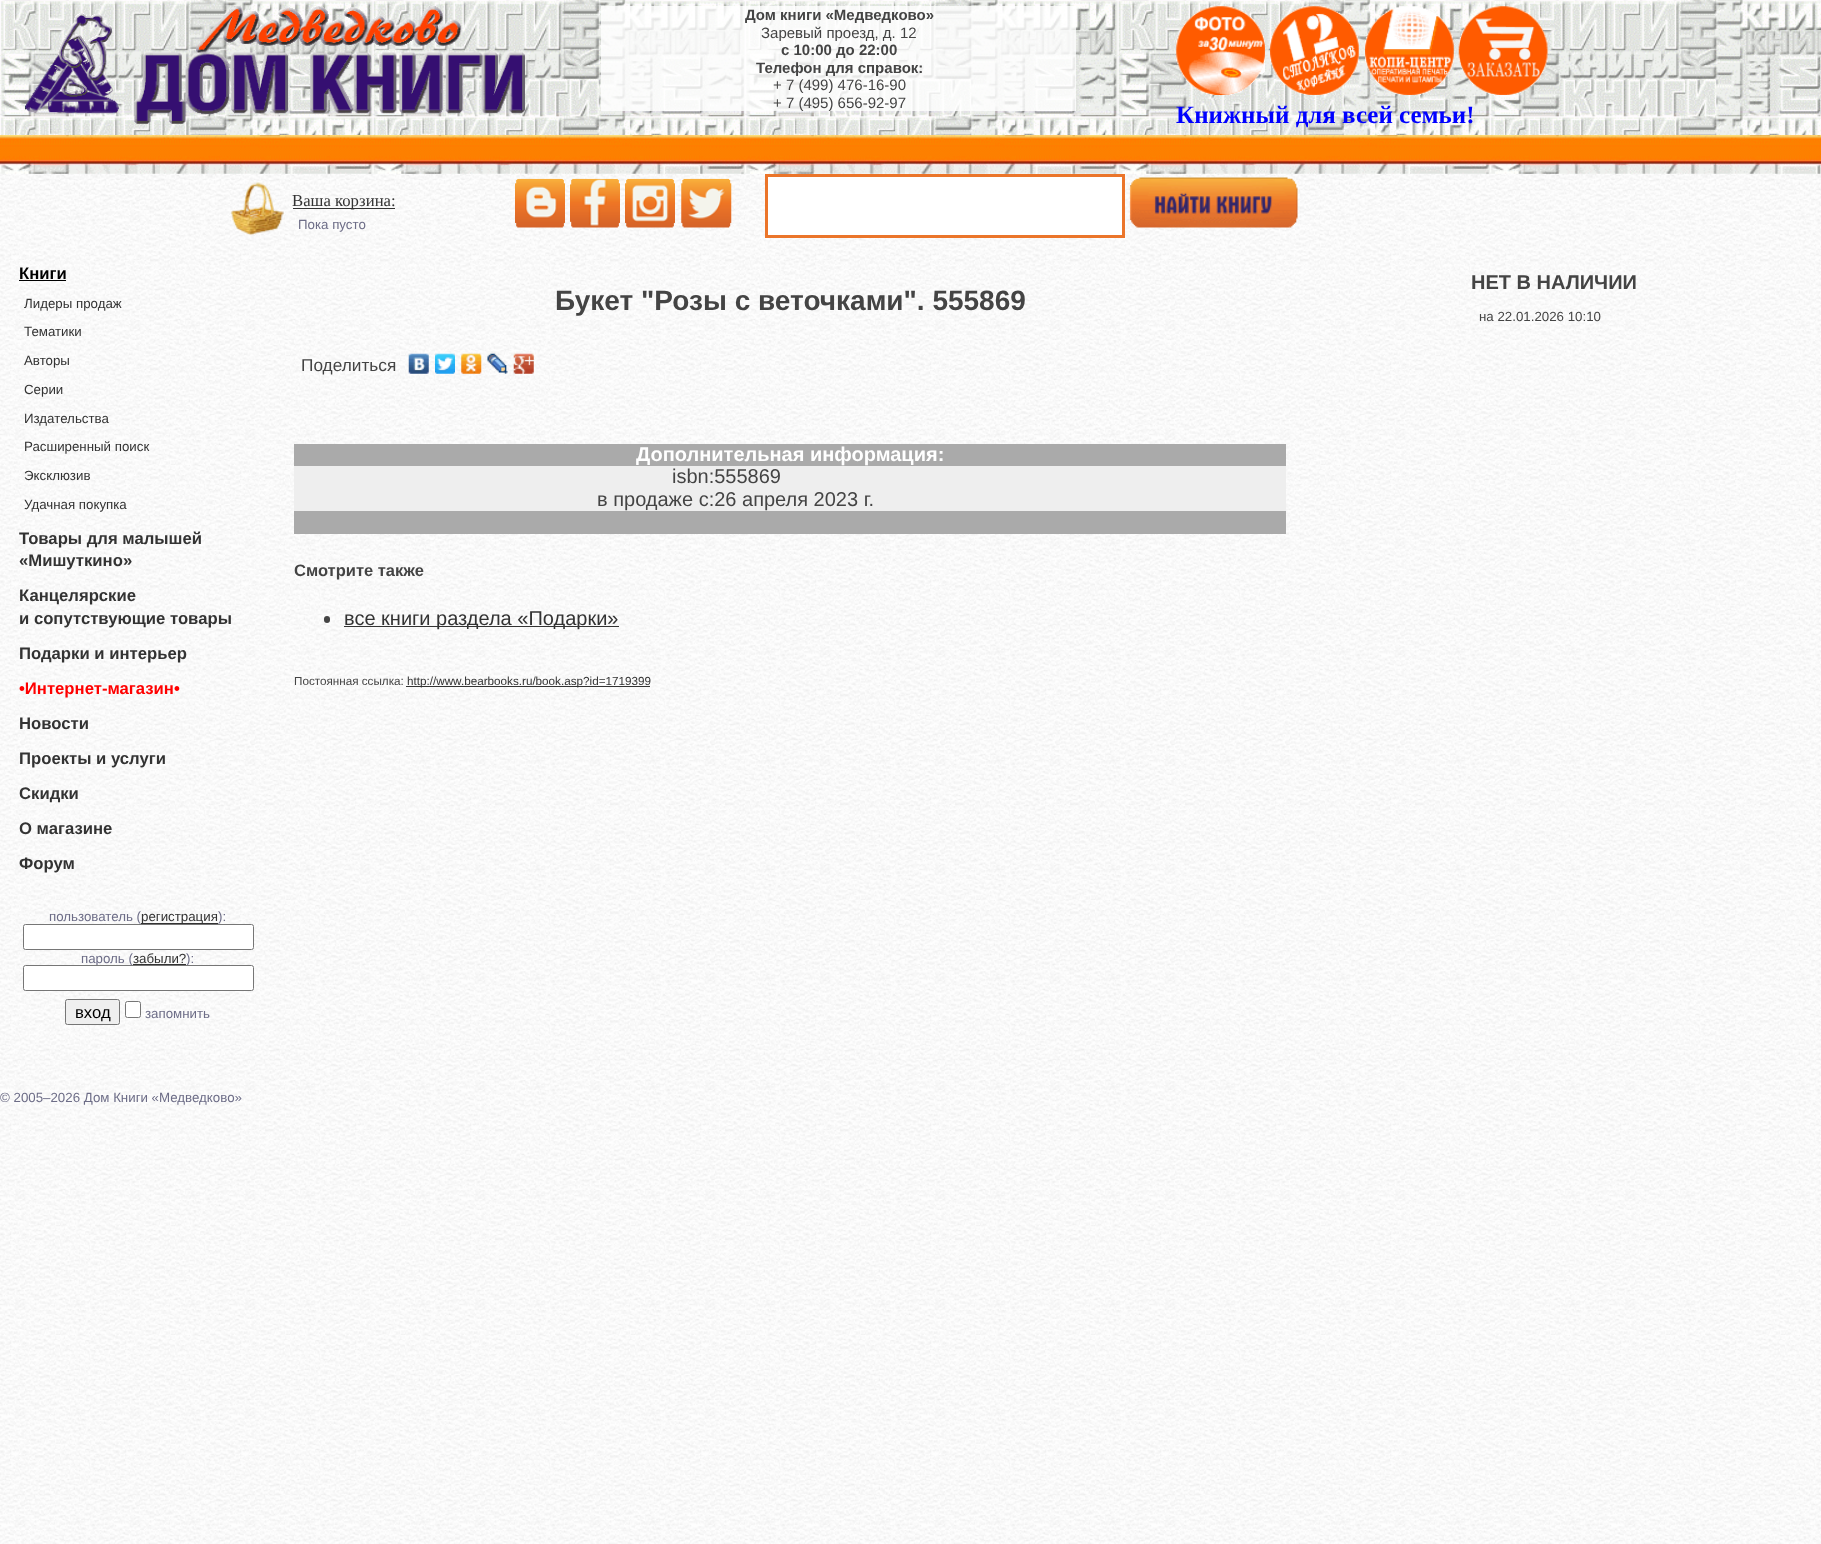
async function draw(canvas) {
  canvas.width = 1821;
  canvas.height = 1544;
  const ctx = canvas.getContext('2d');
  ctx.miterLimit = 4;
  ctx.fontKerning = 'normal';
  function label(s, x, y, font, color) {
    ctx.font = font;
    ctx.fillStyle = color;
    ctx.fillText(s, x, y);
  }
  function rect(x, y, w, h, color) {
    ctx.fillStyle = color;
    ctx.fillRect(x, y, w, h);
  }
  function roundedRect(x, y, w, h, r, color) {
    ctx.fillStyle = color;
    ctx.beginPath();
    ctx.roundRect(x, y, w, h, r);
    ctx.fill();
  }
  async function image(src, x, y, w, h) {
    const img = new Image();
    img.src = src;
    await img.decode();
    ctx.drawImage(img, x, y, w, h);
  }

  rect(0, 0, 1821, 1544, '#fff');
  await image('assets/img1.png', 0, 173, 1821, 1371);
  await image('assets/img2.png', 0, 0, 1821, 135);
  await image('assets/img3.png', 25, 6, 500, 118);
  rect(601, 6, 475, 105, '#ffffffcc');
  label('Дом книги «Медведково»', 745, 20, 'bold 15px Liberation Sans', '#444');
  label('Заревый проезд, д. 12', 761, 38, '15px Liberation Sans', '#444');
  label('с 10:00 до 22:00', 781, 55, 'bold 15px Liberation Sans', '#444');
  label('Телефон для справок:', 756, 73, 'bold 15px Liberation Sans', '#444');
  label('+ 7 (499) 476-16-90', 773, 90, '15px Liberation Sans', '#444');
  label('+ 7 (495) 656-92-97', 773, 108, '15px Liberation Sans', '#444');
  await image('assets/img4.png', 1176, 6, 89, 89);
  await image('assets/img5.png', 1270, 6, 89, 89);
  await image('assets/img6.png', 1365, 6, 89, 89);
  await image('assets/img7.png', 1458, 6, 90, 89);
  label('Книжный для всей семьи!', 1176, 123, 'bold 25px Liberation Serif', '#00f');
  await image('assets/img8.png', 0, 135, 1821, 39);
  await image('assets/img9.png', 231, 182, 53, 54);
  rect(293, 208, 102, 1, '#333');
  label('Ваша корзина:', 292, 206, '16.7px Liberation Serif', '#333');
  label('Пока пусто', 298, 229, '13.3px Liberation Sans', '#6d6d87');
  await image('assets/img10.png', 515, 178, 50, 50);
  await image('assets/img11.png', 570, 178, 50, 50);
  await image('assets/img12.png', 625, 178, 50, 50);
  await image('assets/img13.png', 681, 178, 51, 50);
  ctx.fillStyle = '#fff';
  ctx.beginPath();
  ctx.rect(766.5, 175.5, 357, 61);
  ctx.fill();
  ctx.strokeStyle = '#eb752a';
  ctx.lineWidth = 3;
  ctx.stroke();
  await image('assets/img14.png', 1129, 177, 169, 51);
  label('Книги', 19, 279, 'bold 16.7px Liberation Sans', '#000');
  rect(19, 280, 47, 1, '#000');
  label('Лидеры продаж', 24, 308, '13.3px Liberation Sans', '#333');
  label('Тематики', 24, 336, '13.3px Liberation Sans', '#333');
  label('Авторы', 24, 365, '13.3px Liberation Sans', '#333');
  label('Серии', 24, 394, '13.3px Liberation Sans', '#333');
  label('Издательства', 24, 423, '13.3px Liberation Sans', '#333');
  label('Расширенный поиск', 24, 451, '13.3px Liberation Sans', '#333');
  label('Эксклюзив', 24, 480, '13.3px Liberation Sans', '#333');
  label('Удачная покупка', 24, 509, '13.3px Liberation Sans', '#333');
  label('Товары для малышей', 19, 544, 'bold 16.7px Liberation Sans', '#333');
  label('«Мишуткино»', 19, 566, 'bold 16.7px Liberation Sans', '#333');
  label('Канцелярские', 19, 601, 'bold 16.7px Liberation Sans', '#333');
  label('и сопутствующие товары', 19, 624, 'bold 16.7px Liberation Sans', '#333');
  label('Подарки и интерьер', 19, 659, 'bold 16.7px Liberation Sans', '#333');
  label('•Интернет-магазин•', 19, 694, 'bold 16.7px Liberation Sans', '#f00');
  label('Новости', 19, 729, 'bold 16.7px Liberation Sans', '#333');
  label('Проекты и услуги', 19, 764, 'bold 16.7px Liberation Sans', '#333');
  label('Скидки', 19, 799, 'bold 16.7px Liberation Sans', '#333');
  label('О магазине', 19, 834, 'bold 16.7px Liberation Sans', '#333');
  label('Форум', 19, 869, 'bold 16.7px Liberation Sans', '#333');
  label('пользователь (', 49, 921, '13.3px Liberation Sans', '#6d6d87');
  rect(141, 923, 77, 1, '#333');
  label('регистрация', 141, 921, '13.3px Liberation Sans', '#333');
  label('):', 218, 921, '13.3px Liberation Sans', '#6d6d87');
  ctx.fillStyle = '#fff';
  ctx.beginPath();
  ctx.roundRect(23.5, 924.5, 230, 25, 2);
  ctx.fill();
  ctx.strokeStyle = '#767676';
  ctx.lineWidth = 1;
  ctx.stroke();
  label('пароль (', 81, 963, '13.3px Liberation Sans', '#6d6d87');
  rect(133, 964, 53, 1, '#333');
  label('забыли?', 133, 963, '13.3px Liberation Sans', '#333');
  label('):', 186, 963, '13.3px Liberation Sans', '#6d6d87');
  ctx.fillStyle = '#fff';
  ctx.beginPath();
  ctx.roundRect(23.5, 965.5, 230, 25, 2);
  ctx.fill();
  ctx.stroke();
  ctx.fillStyle = '#efefef';
  ctx.beginPath();
  ctx.roundRect(65.5, 999.5, 54, 25, 2);
  ctx.fill();
  ctx.stroke();
  label('вход', 75, 1018, '16.7px Liberation Sans', '#000');
  ctx.fillStyle = '#fff';
  ctx.beginPath();
  ctx.roundRect(125.5, 1001.5, 15, 16, 2);
  ctx.fill();
  ctx.stroke();
  label('запомнить', 145, 1018, '13.3px Liberation Sans', '#6d6d87');
  label('© 2005–2026 Дом Книги «Медведково»', 0, 1102, '13.3px Liberation Sans', '#6d6d87');
  label('Букет "Розы с веточками". 555869', 555, 310, 'bold 28px Liberation Sans', '#444');
  label('Поделиться', 301, 371, '17.25px Liberation Sans', '#444');
  await image('assets/img15.png', 408, 353, 21, 21);
  await image('assets/img16.png', 435, 353, 20, 21);
  await image('assets/img17.png', 461, 353, 21, 21);
  await image('assets/img18.png', 487, 353, 21, 21);
  await image('assets/img19.png', 513, 353, 21, 21);
  rect(294, 444, 992, 22, '#aaa');
  label('Дополнительная информация:', 636, 461, 'bold 20px Liberation Sans', '#fff');
  rect(294, 466, 992, 45, '#eee');
  label('isbn:555869', 672, 483, '20px Liberation Sans', '#444');
  label('в продаже с:26 апреля 2023 г.', 597, 506, '20px Liberation Sans', '#444');
  rect(294, 511, 992, 23, '#aaa');
  label('Смотрите также', 294, 576, 'bold 16.5px Liberation Sans', '#444');
  roundedRect(324, 616, 6, 7, 3, '#444');
  rect(344, 626, 275, 1, '#333');
  label('все книги раздела «Подарки»', 344, 625, '20px Liberation Sans', '#333');
  label('Постоянная ссылка:', 294, 685, '11.7px Liberation Sans', '#444');
  rect(406, 686, 244, 1, '#333');
  label('http://www.bearbooks.ru/book.asp?id=1719399', 407, 685, '11.7px Liberation Sans', '#333');
  label('НЕТ В НАЛИЧИИ', 1471, 289, 'bold 20px Liberation Sans', '#444');
  label('на 22.01.2026 10:10', 1479, 321, '13.3px Liberation Sans', '#444');
}

draw(document.querySelector('canvas'));
